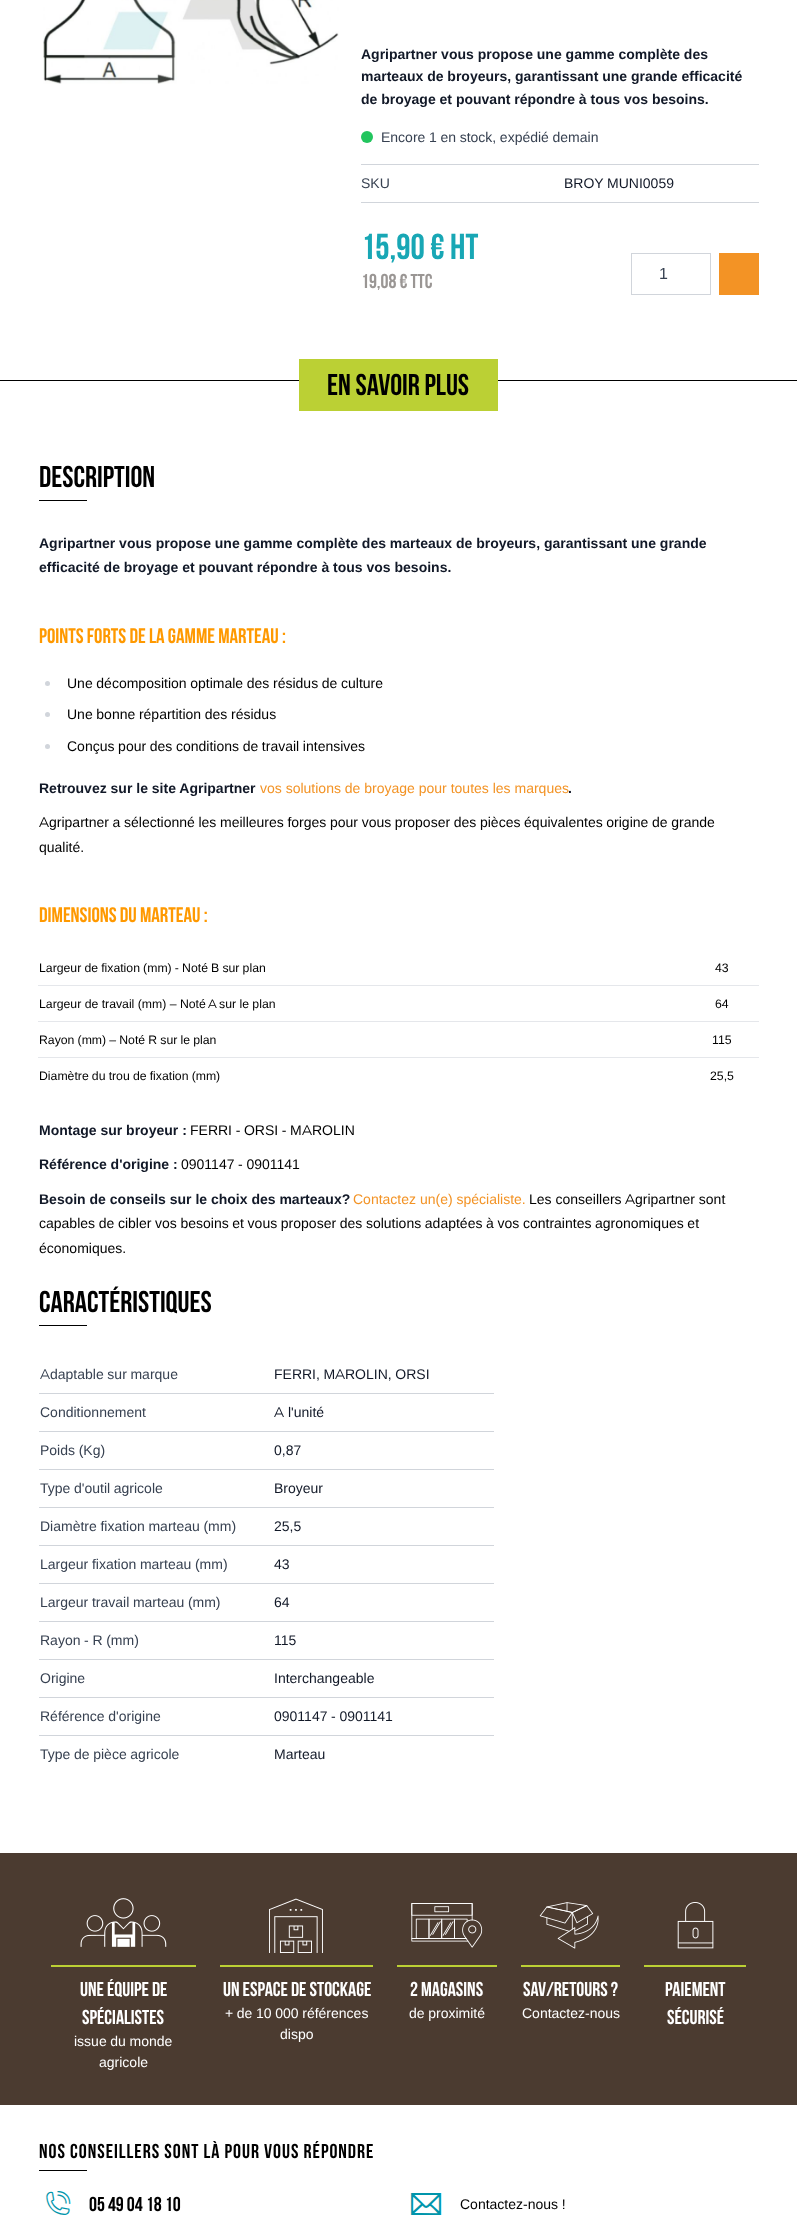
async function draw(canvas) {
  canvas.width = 797;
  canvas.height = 2233;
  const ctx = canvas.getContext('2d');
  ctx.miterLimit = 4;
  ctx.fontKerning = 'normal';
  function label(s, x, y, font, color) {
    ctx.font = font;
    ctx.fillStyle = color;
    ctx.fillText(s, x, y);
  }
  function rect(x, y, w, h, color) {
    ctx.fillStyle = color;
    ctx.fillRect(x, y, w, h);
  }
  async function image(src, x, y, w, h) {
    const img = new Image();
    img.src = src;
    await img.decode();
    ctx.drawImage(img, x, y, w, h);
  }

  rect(0, 0, 797, 2233, '#fff');
  await image('assets/img1.png', 43, 0, 296, 84);
  label('Agripartner vous propose une gamme complète des', 361, 59, 'bold 14px Liberation Sans', '#111827');
  label('marteaux de broyeurs, garantissant une grande efficacité', 361, 81, 'bold 14px Liberation Sans', '#111827');
  label('de broyage et pouvant répondre à tous vos besoins.', 361, 104, 'bold 14px Liberation Sans', '#111827');
  ctx.fillStyle = '#22c55e';
  ctx.beginPath();
  ctx.arc(367, 137, 6, 0, 2 * Math.PI);
  ctx.fill();
  ctx.wordSpacing = '-0.25px';
  label('Encore 1 en stock, expédié demain', 381, 142, '14px Liberation Sans', '#374151');
  rect(361, 164, 398, 1, '#d1d5db');
  rect(361, 202, 398, 1, '#d1d5db');
  ctx.wordSpacing = '0px';
  label('SKU', 361, 188, '14px Liberation Sans', '#374151');
  ctx.wordSpacing = '-0.25px';
  label('BROY MUNI0059', 564, 188, '14px Liberation Sans', '#111827');
  ctx.wordSpacing = '0px';
  label('15,90 € HT', 361, 259, 'bold 36px Bebas Neue', '#18a7b5');
  label('19,08 € TTC', 361, 288, 'bold 20px Bebas Neue', '#9a9694');
  ctx.strokeStyle = '#d1d5db';
  ctx.strokeRect(631.5, 253.5, 79, 41);
  label('1', 659, 279, '16px Liberation Sans', '#374151');
  rect(719, 253, 40, 42, '#f39325');
  rect(0, 380, 797, 1, '#000');
  rect(299, 359, 199, 52, '#bbd034');
  label('En savoir plus', 327, 395, 'bold 30px Bebas Neue', '#000');
  label('Description', 39, 487, 'bold 30px Bebas Neue', '#000');
  rect(39, 500, 48, 1, '#000');
  label('Agripartner vous propose une gamme complète des marteaux de broyeurs, garantissant une grande', 39, 548, 'bold 14px Liberation Sans', '#111827');
  label('efficacité de broyage et pouvant répondre à tous vos besoins.', 39, 572, 'bold 14px Liberation Sans', '#111827');
  label('Points forts de la gamme marteau :', 39, 643, 'bold 21px Bebas Neue', '#f90');
  ctx.fillStyle = '#d1d5db';
  ctx.beginPath();
  ctx.arc(47.5, 683.5, 2.5, 0, 2 * Math.PI);
  ctx.fill();
  ctx.wordSpacing = '-0.25px';
  label('Une décomposition optimale des résidus de culture', 67, 688, '14px Liberation Sans', '#000');
  ctx.fillStyle = '#d1d5db';
  ctx.beginPath();
  ctx.arc(47.5, 714.5, 2.5, 0, 2 * Math.PI);
  ctx.fill();
  label('Une bonne répartition des résidus', 67, 719, '14px Liberation Sans', '#000');
  ctx.fillStyle = '#d1d5db';
  ctx.beginPath();
  ctx.arc(47.5, 746.5, 2.5, 0, 2 * Math.PI);
  ctx.fill();
  label('Conçus pour des conditions de travail intensives', 67, 751, '14px Liberation Sans', '#000');
  ctx.wordSpacing = '0px';
  label('Retrouvez sur le site Agripartner', 39, 793, 'bold 14px Liberation Sans', '#111827');
  label('vos solutions de broyage pour toutes les marques', 260, 793, '14px Liberation Sans', '#f39325');
  label('.', 568, 793, 'bold 14px Liberation Sans', '#111827');
  label('A', 39, 827, '14px Montserrat', '#000');
  ctx.wordSpacing = '-0.25px';
  label('gripartner a sélectionné les meilleures forges pour vous proposer des pièces équivalentes origine de grande', 49, 827, '14px Liberation Sans', '#000');
  ctx.wordSpacing = '0px';
  label('qualité.', 39, 852, '14px Liberation Sans', '#000');
  label('Dimensions du marteau :', 39, 922, 'bold 21px Bebas Neue', '#f90');
  rect(38, 985, 721, 1, '#e5e7eb');
  ctx.wordSpacing = '-0.25px';
  label('Largeur de fixation (mm) - Noté B sur plan', 39, 972, '12.25px Liberation Sans', '#000');
  ctx.wordSpacing = '0px';
  label('43', 715, 972, '12.25px Liberation Sans', '#000');
  rect(38, 1021, 721, 1, '#e5e7eb');
  label('Largeur de travail (mm) – Noté', 39, 1008, '12.25px Liberation Sans', '#000');
  label('A', 208, 1008, '12.25px Montserrat', '#000');
  label('sur le plan', 219, 1008, '12.25px Liberation Sans', '#000');
  label('64', 715, 1008, '12.25px Liberation Sans', '#000');
  rect(38, 1057, 721, 1, '#e5e7eb');
  ctx.wordSpacing = '-0.25px';
  label('Rayon (mm) – Noté R sur le plan', 39, 1044, '12.25px Liberation Sans', '#000');
  ctx.wordSpacing = '0px';
  label('115', 712, 1044, '12.25px Liberation Sans', '#000');
  ctx.wordSpacing = '-0.25px';
  label('Diamètre du trou de fixation (mm)', 39, 1080, '12.25px Liberation Sans', '#000');
  ctx.wordSpacing = '0px';
  label('25,5', 710, 1080, '12.25px Liberation Sans', '#000');
  label('Montage sur broyeur :', 39, 1135, 'bold 14px Liberation Sans', '#111827');
  ctx.wordSpacing = '-0.25px';
  label('FERRI - ORSI - M', 190, 1135, '14px Liberation Sans', '#000');
  ctx.wordSpacing = '0px';
  label('A', 302, 1135, '14px Montserrat', '#000');
  label('ROLIN', 312, 1135, '14px Liberation Sans', '#000');
  label('Référence d\'origine :', 39, 1169, 'bold 14px Liberation Sans', '#111827');
  ctx.wordSpacing = '-0.25px';
  label('0901147 - 0901141', 181, 1169, '14px Liberation Sans', '#000');
  ctx.wordSpacing = '0px';
  label('Besoin de conseils sur le choix des marteaux?', 39, 1204, 'bold 14px Liberation Sans', '#111827');
  label('Contactez un(e) spécialiste.', 353, 1204, '14px Liberation Sans', '#f39325');
  label('Les conseillers', 529, 1204, '14px Liberation Sans', '#000');
  label('A', 625, 1204, '14px Montserrat', '#000');
  label('gripartner sont', 635, 1204, '14px Liberation Sans', '#000');
  ctx.wordSpacing = '-0.25px';
  label('capables de cibler vos besoins et vous proposer des solutions adaptées à vos contraintes', 39, 1228, '14px Liberation Sans', '#000');
  label('agronomiques et', 595, 1228, '14px Liberation Sans', '#000');
  ctx.wordSpacing = '0px';
  label('économiques.', 39, 1253, '14px Liberation Sans', '#000');
  label('Caractéristiques', 39, 1312, 'bold 30px Bebas Neue', '#000');
  rect(39, 1325, 48, 1, '#000');
  rect(39, 1393, 455, 1, '#d1d5db');
  label('A', 40, 1379, '14px Montserrat', '#374151');
  ctx.wordSpacing = '-0.25px';
  label('daptable sur marque', 50, 1379, '14px Liberation Sans', '#374151');
  label('FERRI, M', 274, 1379, '14px Liberation Sans', '#111827');
  ctx.wordSpacing = '0px';
  label('A', 335, 1379, '14px Montserrat', '#111827');
  ctx.wordSpacing = '-0.25px';
  label('ROLIN, ORSI', 345, 1379, '14px Liberation Sans', '#111827');
  rect(39, 1431, 455, 1, '#d1d5db');
  ctx.wordSpacing = '0px';
  label('Conditionnement', 40, 1417, '14px Liberation Sans', '#374151');
  label('A', 274, 1417, '14px Montserrat', '#111827');
  label('l\'unité', 288, 1417, '14px Liberation Sans', '#111827');
  rect(39, 1469, 455, 1, '#d1d5db');
  ctx.wordSpacing = '-0.25px';
  label('Poids (Kg)', 40, 1455, '14px Liberation Sans', '#374151');
  ctx.wordSpacing = '0px';
  label('0,87', 274, 1455, '14px Liberation Sans', '#111827');
  rect(39, 1507, 455, 1, '#d1d5db');
  ctx.wordSpacing = '-0.25px';
  label('Type d\'outil agricole', 40, 1493, '14px Liberation Sans', '#374151');
  ctx.wordSpacing = '0px';
  label('Broyeur', 274, 1493, '14px Liberation Sans', '#111827');
  rect(39, 1545, 455, 1, '#d1d5db');
  ctx.wordSpacing = '-0.25px';
  label('Diamètre fixation marteau (mm)', 40, 1531, '14px Liberation Sans', '#374151');
  ctx.wordSpacing = '0px';
  label('25,5', 274, 1531, '14px Liberation Sans', '#111827');
  rect(39, 1583, 455, 1, '#d1d5db');
  ctx.wordSpacing = '-0.25px';
  label('Largeur fixation marteau (mm)', 40, 1569, '14px Liberation Sans', '#374151');
  ctx.wordSpacing = '0px';
  label('43', 274, 1569, '14px Liberation Sans', '#111827');
  rect(39, 1621, 455, 1, '#d1d5db');
  ctx.wordSpacing = '-0.25px';
  label('Largeur travail marteau (mm)', 40, 1607, '14px Liberation Sans', '#374151');
  ctx.wordSpacing = '0px';
  label('64', 274, 1607, '14px Liberation Sans', '#111827');
  rect(39, 1659, 455, 1, '#d1d5db');
  ctx.wordSpacing = '-0.25px';
  label('Rayon - R (mm)', 40, 1645, '14px Liberation Sans', '#374151');
  ctx.wordSpacing = '0px';
  label('115', 274, 1645, '14px Liberation Sans', '#111827');
  rect(39, 1697, 455, 1, '#d1d5db');
  label('Origine', 40, 1683, '14px Liberation Sans', '#374151');
  label('Interchangeable', 274, 1683, '14px Liberation Sans', '#111827');
  rect(39, 1735, 455, 1, '#d1d5db');
  ctx.wordSpacing = '-0.25px';
  label('Référence d\'origine', 40, 1721, '14px Liberation Sans', '#374151');
  label('0901147 - 0901141', 274, 1721, '14px Liberation Sans', '#111827');
  label('Type de pièce agricole', 40, 1759, '14px Liberation Sans', '#374151');
  ctx.wordSpacing = '0px';
  label('Marteau', 274, 1759, '14px Liberation Sans', '#111827');
  rect(0, 1853, 797, 252, '#4b3b30');
  rect(51, 1965, 145, 2, '#bbd034');
  await image('assets/img2.png', 80, 1898, 87, 49);
  label('Une équipe de', 80, 1996, 'bold 20px Bebas Neue', '#fff');
  label('spécialistes', 82, 2024, 'bold 20px Bebas Neue', '#fff');
  ctx.wordSpacing = '-0.25px';
  label('issue du monde', 74, 2046, '14px Liberation Sans', '#fff');
  ctx.wordSpacing = '0px';
  label('agricole', 99, 2067, '14px Liberation Sans', '#fff');
  rect(220, 1965, 153, 2, '#bbd034');
  await image('assets/img3.png', 269, 1898, 54, 55);
  label('Un espace de stockage', 223, 1996, 'bold 20px Bebas Neue', '#fff');
  ctx.wordSpacing = '-0.25px';
  label('+ de 10 000 références', 225, 2018, '14px Liberation Sans', '#fff');
  ctx.wordSpacing = '0px';
  label('dispo', 280, 2039, '14px Liberation Sans', '#fff');
  rect(397, 1965, 100, 2, '#bbd034');
  await image('assets/img4.png', 411, 1903, 72, 45);
  label('2 magasins', 410, 1996, 'bold 20px Bebas Neue', '#fff');
  ctx.wordSpacing = '-0.25px';
  label('de proximité', 409, 2018, '14px Liberation Sans', '#fff');
  rect(521, 1965, 99, 2, '#bbd034');
  await image('assets/img5.png', 539, 1902, 60, 47);
  ctx.wordSpacing = '0px';
  label('sav/retours ?', 523, 1996, 'bold 20px Bebas Neue', '#fff');
  label('Contactez-nous', 522, 2018, '14px Liberation Sans', '#fff');
  rect(644, 1965, 102, 2, '#bbd034');
  await image('assets/img6.png', 677, 1902, 37, 47);
  label('Paiement', 665, 1996, 'bold 20px Bebas Neue', '#fff');
  label('sécurisé', 667, 2024, 'bold 20px Bebas Neue', '#fff');
  ctx.letterSpacing = '1px';
  label('Nos conseillers sont là pour vous répondre', 39, 2158, 'bold 20px Bebas Neue', '#000');
  rect(39, 2170, 48, 1, '#000');
  await image('assets/img7.png', 45, 2191, 26, 24);
  ctx.letterSpacing = '0px';
  label('05 49 04 18 10', 89, 2211, 'bold 20px Bebas Neue', '#000');
  await image('assets/img8.png', 410, 2193, 32, 22);
  ctx.wordSpacing = '-0.25px';
  label('Contactez-nous !', 460, 2209, '14px Liberation Sans', '#000');
}

draw(document.querySelector('canvas'));
